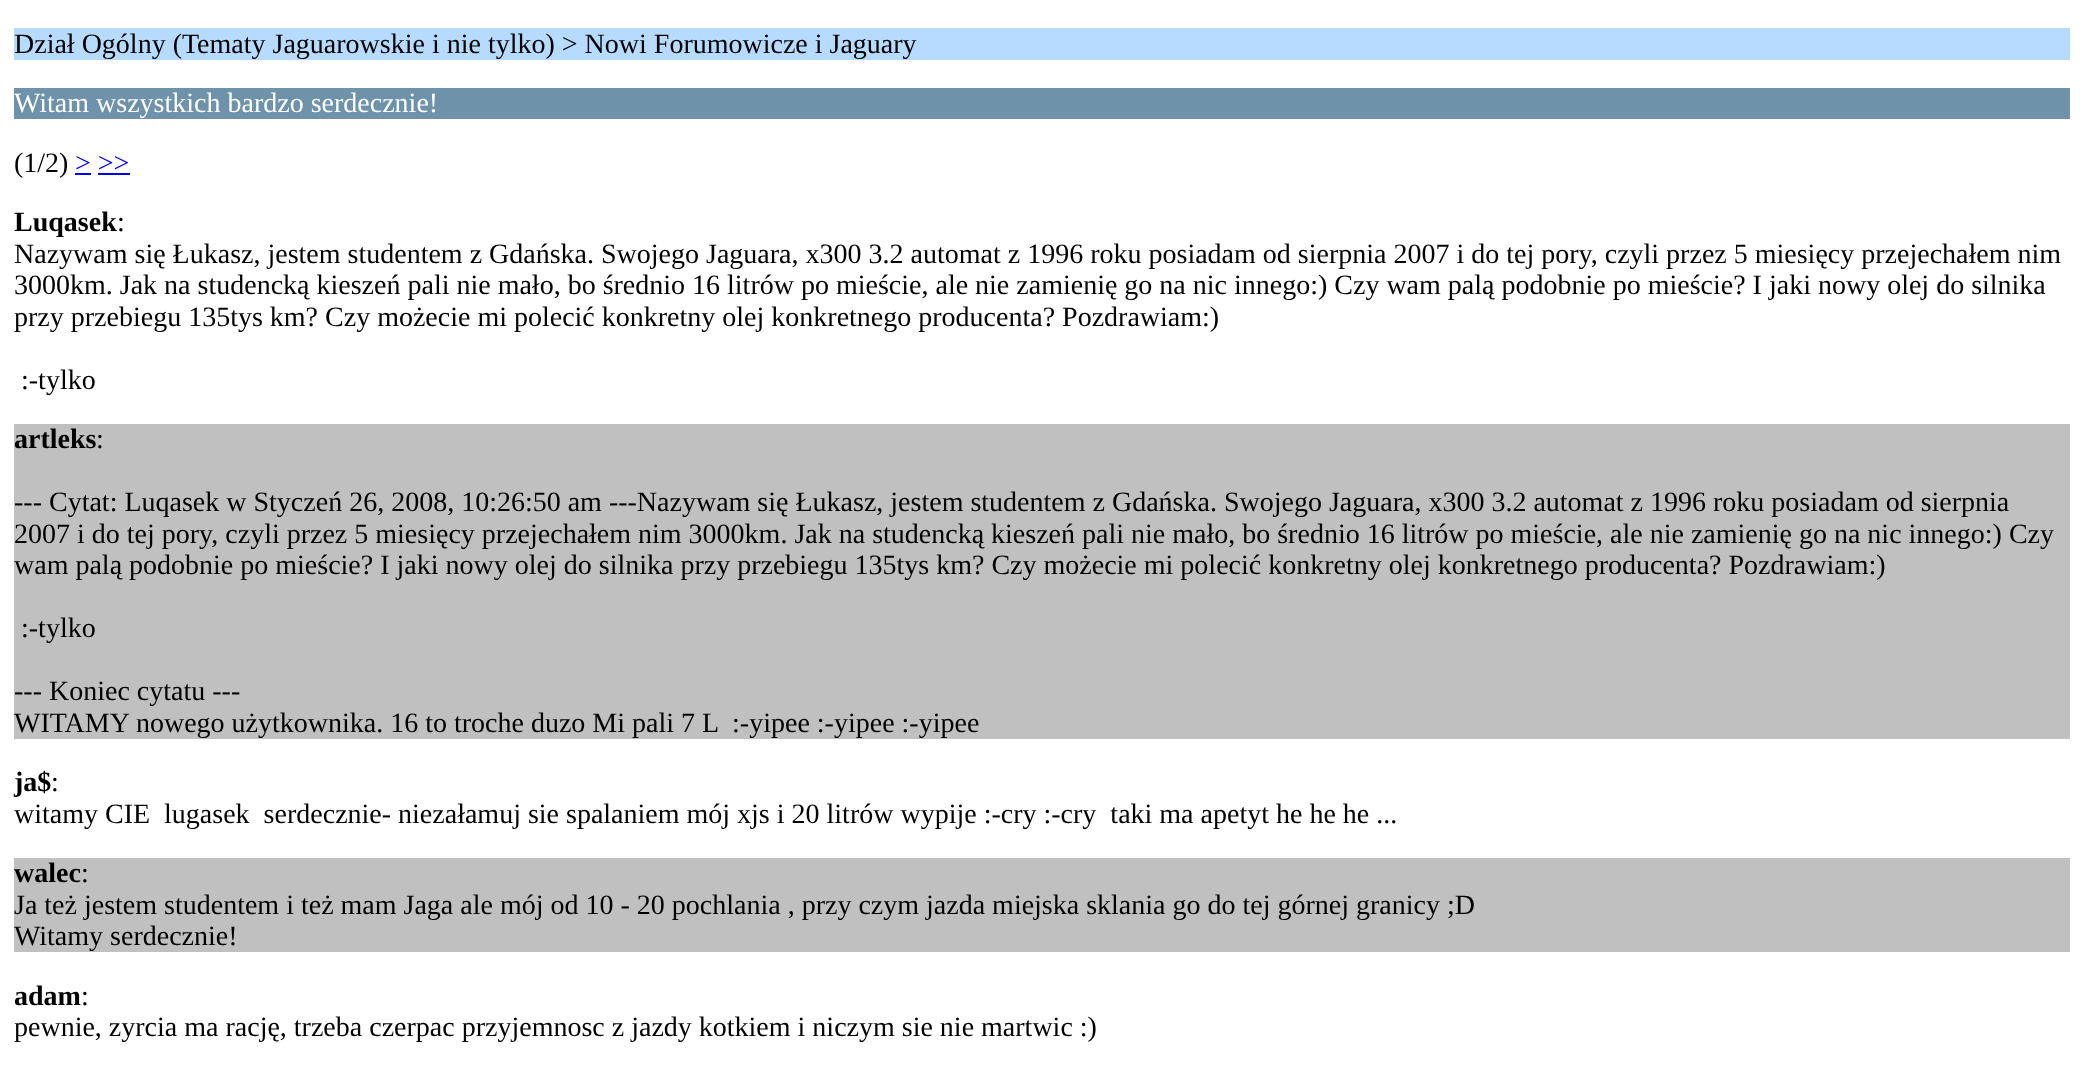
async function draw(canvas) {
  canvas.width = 2084;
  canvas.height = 1087;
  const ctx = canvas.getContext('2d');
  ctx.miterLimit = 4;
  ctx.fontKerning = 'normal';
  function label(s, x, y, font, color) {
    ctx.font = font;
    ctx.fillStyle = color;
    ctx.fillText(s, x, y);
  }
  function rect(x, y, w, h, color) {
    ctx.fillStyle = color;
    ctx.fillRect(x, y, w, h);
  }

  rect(0, 0, 2084, 1087, '#fff');
  rect(14, 28, 2056, 32, '#b6dbff');
  label('Dział Ogólny (Tematy Jaguarowskie i nie tylko) > Nowi Forumowicze i Jaguary', 14, 53, '28px Liberation Serif', '#000');
  rect(14, 88, 2056, 31, '#6d92aa');
  label('Witam wszystkich bardzo serdecznie!', 14, 112, '28px Liberation Serif', '#fff');
  label('(1/2)', 14, 172, '28px Liberation Serif', '#000');
  label('> >>', 75, 172, '28px Liberation Serif', '#00e');
  rect(75, 173, 16, 2, '#00e');
  rect(98, 173, 32, 2, '#00e');
  label('Luqasek', 14, 231, 'bold 28px Liberation Serif', '#000');
  label(':', 117, 231, '28px Liberation Serif', '#000');
  label('Nazywam się Łukasz, jestem studentem z Gdańska. Swojego Jaguara, x300 3.2 automat z 1996 roku posiadam od sierpnia 2007 i do tej pory, czyli przez 5 miesięcy przejechałem nim', 14, 263, '28px Liberation Serif', '#000');
  label('3000km. Jak na studencką kieszeń pali nie mało, bo średnio 16 litrów po mieście, ale nie zamienię go na nic innego:) Czy wam palą podobnie po mieście? I jaki nowy olej do silnika', 14, 294, '28px Liberation Serif', '#000');
  label('przy przebiegu 135tys km? Czy możecie mi polecić konkretny olej konkretnego producenta? Pozdrawiam:)', 14, 326, '28px Liberation Serif', '#000');
  label(':-tylko', 21, 389, '28px Liberation Serif', '#000');
  rect(14, 424, 2056, 315, '#c0c0c0');
  label('artleks', 14, 448, 'bold 28px Liberation Serif', '#000');
  label(':', 96, 448, '28px Liberation Serif', '#000');
  label('--- Cytat: Luqasek w Styczeń 26, 2008, 10:26:50 am ---Nazywam się Łukasz, jestem studentem z Gdańska. Swojego Jaguara, x300 3.2 automat z 1996 roku posiadam od sierpnia', 14, 511, '28px Liberation Serif', '#000');
  label('2007 i do tej pory, czyli przez 5 miesięcy przejechałem nim 3000km. Jak na studencką kieszeń pali nie mało, bo średnio 16 litrów po mieście, ale nie zamienię go na nic innego:) Czy', 14, 543, '28px Liberation Serif', '#000');
  label('wam palą podobnie po mieście? I jaki nowy olej do silnika przy przebiegu 135tys km? Czy możecie mi polecić konkretny olej konkretnego producenta? Pozdrawiam:)', 14, 574, '28px Liberation Serif', '#000');
  label(':-tylko', 21, 637, '28px Liberation Serif', '#000');
  label('--- Koniec cytatu ---', 14, 700, '28px Liberation Serif', '#000');
  label('WITAMY nowego użytkownika. 16 to troche duzo Mi pali 7 L  :-yipee :-yipee :-yipee', 14, 732, '28px Liberation Serif', '#000');
  label('ja$', 14, 791, 'bold 28px Liberation Serif', '#000');
  label(':', 51, 791, '28px Liberation Serif', '#000');
  label('witamy CIE  lugasek  serdecznie- niezałamuj sie spalaniem mój xjs i 20 litrów wypije :-cry :-cry  taki ma apetyt he he he ...', 14, 823, '28px Liberation Serif', '#000');
  rect(14, 858, 2056, 94, '#c0c0c0');
  label('walec', 14, 882, 'bold 28px Liberation Serif', '#000');
  label(':', 81, 882, '28px Liberation Serif', '#000');
  label('Ja też jestem studentem i też mam Jaga ale mój od 10 - 20 pochlania , przy czym jazda miejska sklania go do tej górnej granicy ;D', 14, 914, '28px Liberation Serif', '#000');
  label('Witamy serdecznie!', 14, 945, '28px Liberation Serif', '#000');
  label('adam', 14, 1005, 'bold 28px Liberation Serif', '#000');
  label(':', 81, 1005, '28px Liberation Serif', '#000');
  label('pewnie, zyrcia ma rację, trzeba czerpac przyjemnosc z jazdy kotkiem i niczym sie nie martwic :)', 14, 1036, '28px Liberation Serif', '#000');
}

draw(document.querySelector('canvas'));
